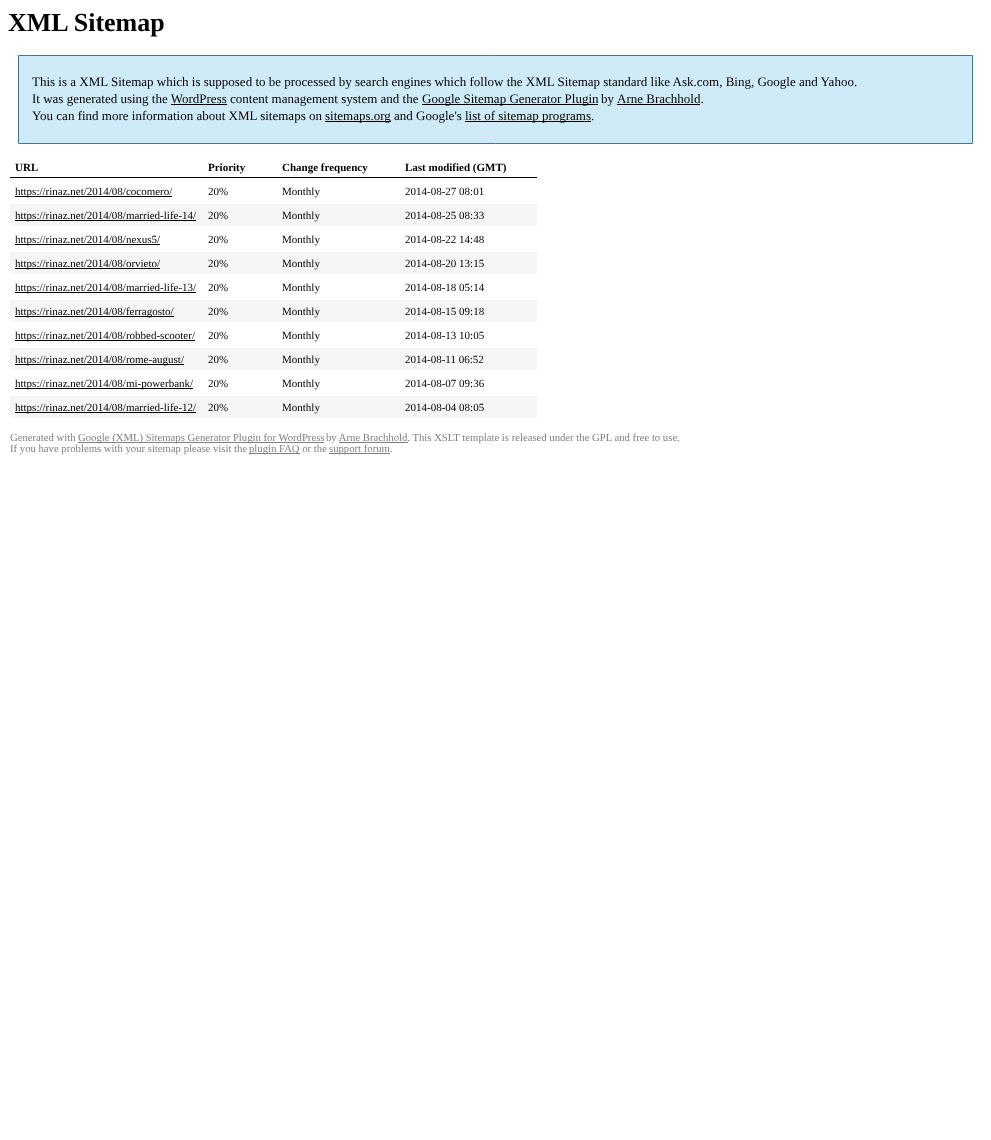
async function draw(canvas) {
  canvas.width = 991;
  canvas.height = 1140;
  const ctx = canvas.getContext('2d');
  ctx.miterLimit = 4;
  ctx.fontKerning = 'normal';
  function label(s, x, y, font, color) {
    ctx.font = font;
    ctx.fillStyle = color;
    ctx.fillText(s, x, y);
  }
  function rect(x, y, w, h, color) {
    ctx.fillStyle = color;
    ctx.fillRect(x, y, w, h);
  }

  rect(0, 0, 991, 1140, '#fff');
  label('XML Sitemap', 8, 31, 'bold 26px Liberation Serif', '#000');
  ctx.fillStyle = '#cfebf7';
  ctx.beginPath();
  ctx.rect(18.5, 55.5, 954, 88);
  ctx.fill();
  ctx.strokeStyle = '#2580b2';
  ctx.stroke();
  label('This is a XML Sitemap which is supposed to be processed by search engines which follow the XML Sitemap standard like Ask.com, Bing, Google and Yahoo.', 32, 86, '13px Liberation Serif', '#000');
  label('It was generated using the WordPress content management system and the', 32, 103, '13px Liberation Serif', '#000');
  rect(422, 104, 176, 1, '#000');
  label('Google Sitemap Generator Plugin', 422, 103, '13px Liberation Serif', '#000');
  label('by', 601, 103, '13px Liberation Serif', '#000');
  label('Arne Brachhold.', 617, 103, '13px Liberation Serif', '#000');
  rect(617, 104, 83, 1, '#000');
  rect(171, 104, 56, 1, '#000');
  label('You can find more information about XML sitemaps on', 32, 120, '13px Liberation Serif', '#000');
  rect(325, 121, 66, 1, '#000');
  label('sitemaps.org and Google\'s', 325, 120, '13px Liberation Serif', '#000');
  rect(465, 121, 126, 1, '#000');
  label('list of sitemap programs.', 465, 120, '13px Liberation Serif', '#000');
  rect(10, 177, 527, 1, '#000');
  label('URL', 15, 171, 'bold 11px Liberation Serif', '#000');
  label('Priority', 208, 171, 'bold 11px Liberation Serif', '#000');
  label('Change frequency', 282, 171, 'bold 11px Liberation Serif', '#000');
  label('Last modified (GMT)', 405, 171, 'bold 11px Liberation Serif', '#000');
  rect(15, 196, 157, 1, '#000');
  label('https://rinaz.net/2014/08/cocomero/', 15, 195, '11px Liberation Serif', '#000');
  label('20%', 208, 195, '11px Liberation Serif', '#000');
  label('Monthly', 282, 195, '11px Liberation Serif', '#000');
  label('2014-08-27 08:01', 405, 195, '11px Liberation Serif', '#000');
  rect(10, 204, 527, 22, '#f5f5f5');
  rect(15, 220, 181, 1, '#000');
  label('https://rinaz.net/2014/08/married-life-14/', 15, 219, '11px Liberation Serif', '#000');
  label('20%', 208, 219, '11px Liberation Serif', '#000');
  label('Monthly', 282, 219, '11px Liberation Serif', '#000');
  label('2014-08-25 08:33', 405, 219, '11px Liberation Serif', '#000');
  rect(15, 244, 145, 1, '#000');
  label('https://rinaz.net/2014/08/nexus5/', 15, 243, '11px Liberation Serif', '#000');
  label('20%', 208, 243, '11px Liberation Serif', '#000');
  label('Monthly', 282, 243, '11px Liberation Serif', '#000');
  label('2014-08-22 14:48', 405, 243, '11px Liberation Serif', '#000');
  rect(10, 252, 527, 22, '#f5f5f5');
  rect(15, 268, 145, 1, '#000');
  label('https://rinaz.net/2014/08/orvieto/', 15, 267, '11px Liberation Serif', '#000');
  label('20%', 208, 267, '11px Liberation Serif', '#000');
  label('Monthly', 282, 267, '11px Liberation Serif', '#000');
  label('2014-08-20 13:15', 405, 267, '11px Liberation Serif', '#000');
  rect(15, 292, 181, 1, '#000');
  label('https://rinaz.net/2014/08/married-life-13/', 15, 291, '11px Liberation Serif', '#000');
  label('20%', 208, 291, '11px Liberation Serif', '#000');
  label('Monthly', 282, 291, '11px Liberation Serif', '#000');
  label('2014-08-18 05:14', 405, 291, '11px Liberation Serif', '#000');
  rect(10, 300, 527, 22, '#f5f5f5');
  rect(15, 316, 159, 1, '#000');
  label('https://rinaz.net/2014/08/ferragosto/', 15, 315, '11px Liberation Serif', '#000');
  label('20%', 208, 315, '11px Liberation Serif', '#000');
  label('Monthly', 282, 315, '11px Liberation Serif', '#000');
  label('2014-08-15 09:18', 405, 315, '11px Liberation Serif', '#000');
  rect(15, 340, 180, 1, '#000');
  label('https://rinaz.net/2014/08/robbed-scooter/', 15, 339, '11px Liberation Serif', '#000');
  label('20%', 208, 339, '11px Liberation Serif', '#000');
  label('Monthly', 282, 339, '11px Liberation Serif', '#000');
  label('2014-08-13 10:05', 405, 339, '11px Liberation Serif', '#000');
  rect(10, 348, 527, 22, '#f5f5f5');
  rect(15, 364, 169, 1, '#000');
  label('https://rinaz.net/2014/08/rome-august/', 15, 363, '11px Liberation Serif', '#000');
  label('20%', 208, 363, '11px Liberation Serif', '#000');
  label('Monthly', 282, 363, '11px Liberation Serif', '#000');
  label('2014-08-11 06:52', 405, 363, '11px Liberation Serif', '#000');
  rect(15, 388, 178, 1, '#000');
  label('https://rinaz.net/2014/08/mi-powerbank/', 15, 387, '11px Liberation Serif', '#000');
  label('20%', 208, 387, '11px Liberation Serif', '#000');
  label('Monthly', 282, 387, '11px Liberation Serif', '#000');
  label('2014-08-07 09:36', 405, 387, '11px Liberation Serif', '#000');
  rect(10, 396, 527, 22, '#f5f5f5');
  rect(15, 412, 181, 1, '#000');
  label('https://rinaz.net/2014/08/married-life-12/', 15, 411, '11px Liberation Serif', '#000');
  label('20%', 208, 411, '11px Liberation Serif', '#000');
  label('Monthly', 282, 411, '11px Liberation Serif', '#000');
  label('2014-08-04 08:05', 405, 411, '11px Liberation Serif', '#000');
  label('Generated with', 10, 441, '10.7px Liberation Serif', '#808080');
  rect(78, 442, 246, 1, '#808080');
  label('Google (XML) Sitemaps Generator Plugin for WordPress', 78, 441, '10.7px Liberation Serif', '#808080');
  label('by Arne Brachhold. This XSLT template is released under the GPL and free to use.', 326, 441, '10.7px Liberation Serif', '#808080');
  rect(339, 442, 69, 1, '#808080');
  label('If you have problems with your sitemap please visit the', 10, 452, '10.7px Liberation Serif', '#808080');
  rect(249, 453, 51, 1, '#808080');
  label('plugin FAQ or the', 249, 452, '10.7px Liberation Serif', '#808080');
  rect(329, 453, 61, 1, '#808080');
  label('support forum.', 329, 452, '10.7px Liberation Serif', '#808080');
}

draw(document.querySelector('canvas'));
